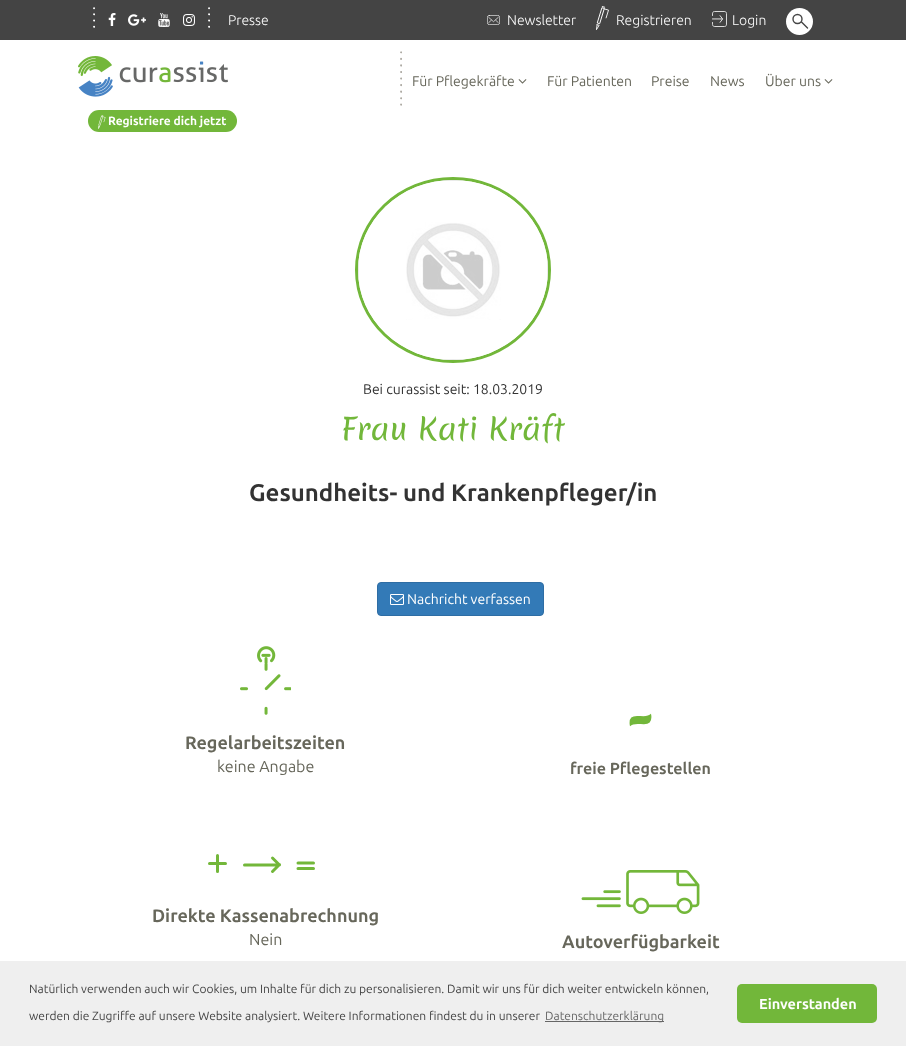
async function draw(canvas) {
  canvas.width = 906;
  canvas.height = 1046;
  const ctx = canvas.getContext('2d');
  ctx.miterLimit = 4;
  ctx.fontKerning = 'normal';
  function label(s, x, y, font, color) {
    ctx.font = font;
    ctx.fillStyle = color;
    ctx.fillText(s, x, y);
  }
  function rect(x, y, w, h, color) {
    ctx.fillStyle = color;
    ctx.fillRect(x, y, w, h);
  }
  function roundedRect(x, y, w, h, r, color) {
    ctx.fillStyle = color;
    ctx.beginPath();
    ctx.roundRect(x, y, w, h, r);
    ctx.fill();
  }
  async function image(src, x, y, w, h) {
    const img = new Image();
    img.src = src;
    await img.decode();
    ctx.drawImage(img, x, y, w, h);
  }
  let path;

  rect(0, 0, 906, 1046, '#fff');
  rect(0, 0, 906, 40, '#444');
  await image('assets/img1.png', 93, 7, 2, 21);
  await image('assets/img2.png', 108, 13, 8, 13);
  await image('assets/img3.png', 128, 14, 18, 12);
  await image('assets/img4.png', 158, 13, 12, 14);
  await image('assets/img5.png', 183, 14, 12, 12);
  await image('assets/img1.png', 208, 7, 2, 21);
  label('Presse', 228, 25, '300 14px Ubuntu', '#fff');
  await image('assets/img6.png', 487, 15, 13, 10);
  label('Newsletter', 507, 25, '300 14px Ubuntu', '#fff');
  await image('assets/img7.png', 596, 6, 13, 24);
  label('Registrieren', 616, 25, '300 14px Ubuntu', '#fff');
  await image('assets/img8.png', 712, 11, 15, 16);
  label('Login', 732, 25, '300 14px Ubuntu', '#fff');
  ctx.beginPath();
  ctx.arc(799.5, 21.5, 13.5, 0, 2 * Math.PI);
  ctx.fill();
  ctx.beginPath();
  ctx.arc(797.5, 19, 4.5, 0, 2 * Math.PI);
  ctx.strokeStyle = '#454545';
  ctx.lineWidth = 1.4;
  ctx.stroke();
  path = new Path2D('M801.5 22L807.5 28');
  ctx.lineCap = 'round';
  ctx.lineJoin = 'round';
  ctx.stroke(path);
  await image('assets/img9.png', 400, 51, 2, 55);
  label('Für Pflegekräfte', 412, 86, '14px Ubuntu', '#67675b');
  await image('assets/img10.png', 518, 79, 9, 5);
  label('Für Patienten', 547, 86, '14px Ubuntu', '#67675b');
  label('Preise', 651, 86, '14px Ubuntu', '#67675b');
  label('News', 710, 86, '14px Ubuntu', '#67675b');
  label('Über uns', 765, 86, '14px Ubuntu', '#67675b');
  await image('assets/img10.png', 824, 79, 9, 5);
  await image('assets/img11.png', 78, 56, 150, 41);
  roundedRect(88, 110, 149, 22, 11, '#72b73a');
  await image('assets/img12.png', 98, 115, 8, 14);
  label('Registriere dich jetzt', 108, 125, 'bold 12px Ubuntu', '#fff');
  path = new Path2D('M453 178.5C506.5 178.5 549.5 219.5 549.5 270C549.5 320.5 506.5 361.5 453 361.5C399.5 361.5 356.5 320.5 356.5 270C356.5 219.5 399.5 178.5 453 178.5Z');
  ctx.strokeStyle = '#72b73a';
  ctx.lineWidth = 3;
  ctx.lineCap = 'butt';
  ctx.lineJoin = 'miter';
  ctx.stroke(path);
  await image('assets/img13.png', 358, 180, 190, 180);
  label('Bei curassist seit: 18.03.2019', 363, 394, '14px Ubuntu', '#333');
  label('Frau Kati Kräft', 341, 440, '30px Merienda', '#72b73a');
  label('Gesundheits- und Krankenpfleger/in', 249, 501, 'bold 24px Ubuntu', '#333');
  ctx.fillStyle = '#337ab7';
  ctx.beginPath();
  ctx.roundRect(377.5, 582.5, 166, 33, 3.5);
  ctx.fill();
  ctx.strokeStyle = '#2e6da4';
  ctx.lineWidth = 1;
  ctx.stroke();
  await image('assets/img14.png', 390, 594, 14, 11);
  label('Nachricht verfassen', 407, 604, '14px Ubuntu', '#fff');
  await image('assets/img15.png', 240, 646, 51, 69);
  label('Regelarbeitszeiten', 185, 749, 'bold 18px Ubuntu', '#67675b');
  label('keine Angabe', 217, 772, '16px Ubuntu', '#67675b');
  label('-', 626, 739, 'bold 60px Merienda', '#72b73a');
  label('freie Pflegestellen', 570, 774, 'bold 16px Ubuntu', '#67675b');
  path = new Path2D('M217.5 855.5V871.5M225.5 863.5H209.5');
  ctx.strokeStyle = '#73b73a';
  ctx.lineWidth = 3;
  ctx.lineCap = 'round';
  ctx.lineJoin = 'round';
  ctx.stroke(path);
  path = new Path2D('M272.5 858L279.5 865H244.5M279.5 864.5L272.5 871.5');
  ctx.stroke(path);
  path = new Path2D('M313.5 863H298M313.5 868.5H298');
  ctx.stroke(path);
  label('Direkte Kassenabrechnung', 152, 922, 'bold 18px Ubuntu', '#67675b');
  label('Nein', 249, 945, '16px Ubuntu', '#67675b');
  await image('assets/img16.png', 581, 870, 119, 44);
  label('Autoverfügbarkeit', 562, 948, 'bold 18px Ubuntu', '#67675b');
  rect(0, 961, 906, 85, '#efefef');
  label('Natürlich verwenden auch wir Cookies, um Inhalte für dich zu personalisieren. Damit wir uns für dich weiter entwickeln können,', 29, 993, '12px Ubuntu', '#444');
  label('werden die Zugriffe auf unsere Website analysiert. Weitere Informationen findest du in unserer', 29, 1020, '12px Ubuntu', '#444');
  rect(545, 1021, 119, 1, '#666');
  label('Datenschutzerklärung', 545, 1020, '12px Ubuntu', '#666');
  roundedRect(737, 984, 140, 39, 5, '#72b73a');
  label('Einverstanden', 759, 1009, 'bold 14.5px Ubuntu', '#fff');
}

draw(document.querySelector('canvas'));
